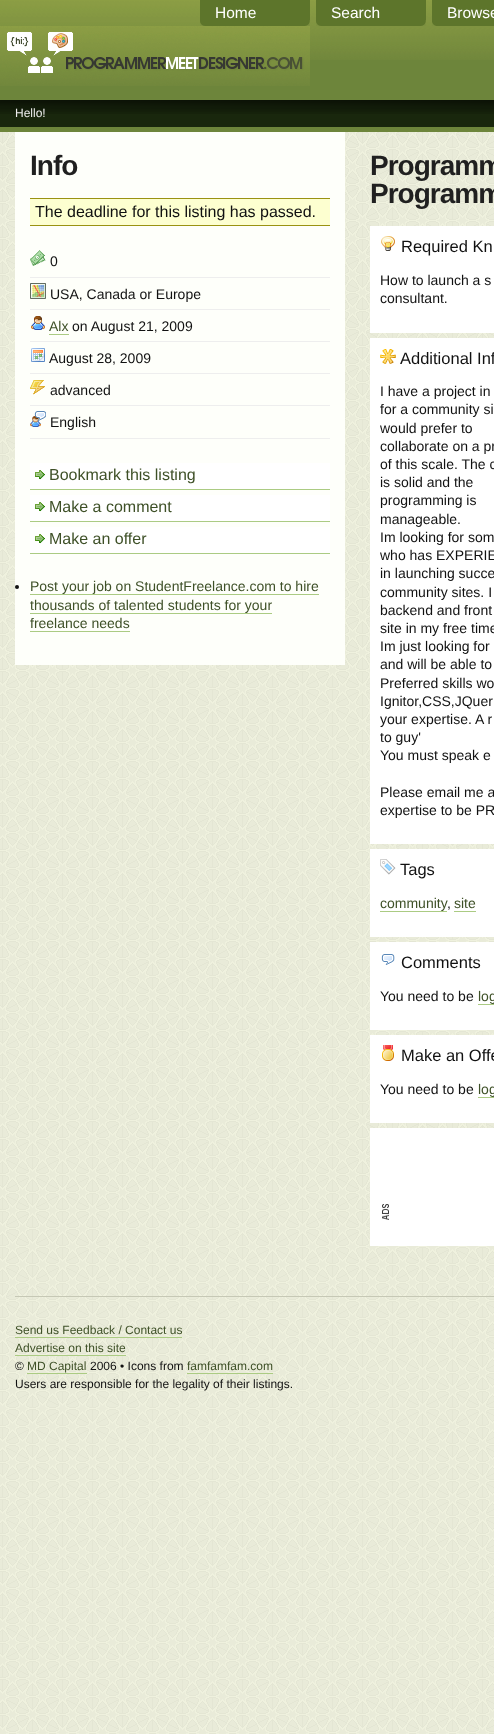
async function draw(canvas) {
  canvas.width = 494;
  canvas.height = 1734;
  const ctx = canvas.getContext('2d');
  ctx.miterLimit = 4;
  ctx.fontKerning = 'normal';
  function label(s, x, y, font, color) {
    ctx.font = font;
    ctx.fillStyle = color;
    ctx.fillText(s, x, y);
  }
  function rect(x, y, w, h, color) {
    ctx.fillStyle = color;
    ctx.fillRect(x, y, w, h);
  }
  async function image(src, x, y, w, h) {
    const img = new Image();
    img.src = src;
    await img.decode();
    ctx.drawImage(img, x, y, w, h);
  }

  rect(0, 0, 494, 1734, '#fff');
  await image('assets/img1.png', 0, 132, 494, 1602);
  rect(0, 60, 494, 72, '#6d853b');
  await image('assets/img2.png', 0, 0, 494, 60);
  rect(200, 0, 110, 20, '#5d752b');
  await image('assets/img3.png', 200, 20, 110, 6);
  label('Home', 215, 18, '15.5px Liberation Sans', '#fff');
  rect(316, 0, 110, 20, '#5d752b');
  await image('assets/img3.png', 316, 20, 110, 6);
  label('Search', 331, 18, '15.5px Liberation Sans', '#fff');
  rect(432, 0, 62, 26, '#5d752b');
  await image('assets/img4.png', 432, 22, 4, 4);
  label('Browse', 447, 18, '15.5px Liberation Sans', '#fff');
  await image('assets/img5.png', 0, 26, 310, 60);
  rect(0, 114, 494, 13, '#19270d');
  await image('assets/img6.png', 0, 100, 494, 14);
  label('Hello!', 15, 117, '12px Liberation Sans', '#eee');
  rect(15, 132, 330, 533, '#fefffa');
  ctx.letterSpacing = '-1px';
  label('Info', 30, 175, 'bold 28px Liberation Sans', '#202020');
  rect(30, 199, 300, 26, '#fdffd0');
  rect(30, 198, 300, 1, '#9a9212');
  rect(30, 225, 300, 1, '#9a9212');
  ctx.letterSpacing = '0px';
  label('The deadline for this listing has passed.', 35, 217, '16px Liberation Sans', '#111');
  rect(30, 277, 300, 1, '#eee');
  await image('assets/img7.png', 30, 250, 16, 16);
  label('0', 50, 266, '14px Liberation Sans', '#111');
  rect(30, 309, 300, 1, '#eee');
  await image('assets/img8.png', 30, 283, 16, 16);
  label('USA, Canada or Europe', 50, 299, '14px Liberation Sans', '#111');
  rect(30, 341, 300, 1, '#eee');
  await image('assets/img9.png', 31, 316, 14, 14);
  label('Alx', 49, 331, '14px Liberation Sans', '#3e5027');
  rect(49, 334, 20, 1, '#abcb83');
  label('on August 21, 2009', 72, 331, '14px Liberation Sans', '#111');
  rect(30, 373, 300, 1, '#eee');
  await image('assets/img10.png', 31, 348, 14, 14);
  label('August 28, 2009', 49, 363, '14px Liberation Sans', '#111');
  rect(30, 405, 300, 1, '#eee');
  await image('assets/img11.png', 30, 380, 15, 15);
  label('advanced', 50, 395, '14px Liberation Sans', '#111');
  rect(30, 438, 300, 1, '#eee');
  await image('assets/img12.png', 30, 411, 16, 16);
  label('English', 50, 427, '14px Liberation Sans', '#111');
  rect(30, 463, 300, 26, '#fff');
  await image('assets/img13.png', 35, 470, 10, 10);
  rect(30, 489, 300, 1, '#abcb83');
  label('Bookmark this listing', 49, 480, '16px Liberation Sans', '#3e5027');
  rect(30, 495, 300, 26, '#fff');
  await image('assets/img13.png', 35, 502, 10, 10);
  rect(30, 521, 300, 1, '#abcb83');
  label('Make a comment', 49, 512, '16px Liberation Sans', '#3e5027');
  rect(30, 527, 300, 26, '#fff');
  await image('assets/img13.png', 35, 534, 10, 10);
  rect(30, 553, 300, 1, '#abcb83');
  label('Make an offer', 49, 544, '16px Liberation Sans', '#3e5027');
  ctx.fillStyle = '#111';
  ctx.beginPath();
  ctx.arc(17, 587, 2, 0, 2 * Math.PI);
  ctx.fill();
  label('Post your job on StudentFreelance.com to hire', 30, 591, '14px Liberation Sans', '#3e5027');
  rect(30, 594, 289, 1, '#abcb83');
  label('thousands of talented students for your', 30, 610, '14px Liberation Sans', '#3e5027');
  rect(30, 613, 242, 1, '#abcb83');
  label('freelance needs', 30, 628, '14px Liberation Sans', '#3e5027');
  rect(30, 631, 100, 1, '#abcb83');
  ctx.letterSpacing = '-1px';
  label('Programm', 370, 175, 'bold 28px Liberation Sans', '#202020');
  label('Programm', 370, 203, 'bold 28px Liberation Sans', '#202020');
  rect(370, 226, 124, 107, '#fff');
  await image('assets/img14.png', 381, 236, 14, 15);
  ctx.letterSpacing = '0px';
  label('Required Kn', 401, 252, '16.5px Liberation Sans', '#111');
  label('How to launch a s', 380, 285, '14px Liberation Sans', '#111');
  label('consultant.', 380, 303, '14px Liberation Sans', '#111');
  rect(370, 338, 124, 506, '#fff');
  await image('assets/img15.png', 380, 349, 16, 15);
  label('Additional Inf', 400, 364, '16.5px Liberation Sans', '#111');
  label('I have a project in', 380, 396, '14px Liberation Sans', '#111');
  label('for a community si', 380, 414, '14px Liberation Sans', '#111');
  label('would prefer to', 380, 433, '14px Liberation Sans', '#111');
  label('collaborate on a pr', 380, 451, '14px Liberation Sans', '#111');
  label('of this scale. The c', 380, 469, '14px Liberation Sans', '#111');
  label('is solid and the', 380, 487, '14px Liberation Sans', '#111');
  label('programming is', 380, 505, '14px Liberation Sans', '#111');
  label('manageable.', 380, 524, '14px Liberation Sans', '#111');
  label('Im looking for som', 380, 542, '14px Liberation Sans', '#111');
  label('who has EXPERIE', 380, 560, '14px Liberation Sans', '#111');
  label('in launching succe', 380, 578, '14px Liberation Sans', '#111');
  label('community sites. I', 380, 597, '14px Liberation Sans', '#111');
  label('backend and front', 380, 615, '14px Liberation Sans', '#111');
  label('site in my free time', 380, 633, '14px Liberation Sans', '#111');
  label('Im just looking for', 380, 651, '14px Liberation Sans', '#111');
  label('and will be able to', 380, 669, '14px Liberation Sans', '#111');
  label('Preferred skills wo', 380, 688, '14px Liberation Sans', '#111');
  label('Ignitor,CSS,JQuer', 380, 706, '14px Liberation Sans', '#111');
  label('your expertise. A r', 380, 724, '14px Liberation Sans', '#111');
  label('to guy\'', 380, 742, '14px Liberation Sans', '#111');
  label('You must speak e', 380, 760, '14px Liberation Sans', '#111');
  label('Please email me a', 380, 797, '14px Liberation Sans', '#111');
  label('expertise to be PR', 380, 815, '14px Liberation Sans', '#111');
  rect(370, 849, 124, 88, '#fff');
  await image('assets/img16.png', 380, 859, 16, 16);
  label('Tags', 400, 875, '16.5px Liberation Sans', '#111');
  label('community', 380, 908, '14px Liberation Sans', '#3e5027');
  rect(380, 911, 67, 1, '#abcb83');
  label(',', 447, 908, '14px Liberation Sans', '#111');
  label('site', 454, 908, '14px Liberation Sans', '#3e5027');
  rect(454, 911, 22, 1, '#abcb83');
  rect(370, 942, 124, 88, '#fff');
  await image('assets/img17.png', 381, 954, 14, 11);
  label('Comments', 401, 968, '16.5px Liberation Sans', '#111');
  label('You need to be', 380, 1001, '14px Liberation Sans', '#111');
  label('log', 478, 1001, '14px Liberation Sans', '#3e5027');
  rect(478, 1004, 16, 1, '#abcb83');
  rect(370, 1035, 124, 88, '#fff');
  await image('assets/img18.png', 382, 1045, 12, 16);
  label('Make an Offe', 401, 1061, '16.5px Liberation Sans', '#111');
  label('You need to be', 380, 1094, '14px Liberation Sans', '#111');
  label('log', 478, 1094, '14px Liberation Sans', '#3e5027');
  rect(478, 1097, 16, 1, '#abcb83');
  rect(370, 1128, 124, 118, '#fff');
  await image('assets/img19.png', 382, 1204, 7, 16);
  rect(15, 1296, 479, 1, '#c6c8b5');
  label('Send us Feedback / Contact us', 15, 1334, '12px Liberation Sans', '#3e5027');
  rect(15, 1337, 167, 1, '#abcb83');
  label('Advertise on this site', 15, 1352, '12px Liberation Sans', '#3e5027');
  rect(15, 1355, 111, 1, '#abcb83');
  label('©', 15, 1370, '12px Liberation Sans', '#111');
  label('MD Capital', 27, 1370, '12px Liberation Sans', '#3e5027');
  rect(27, 1373, 60, 1, '#abcb83');
  label('2006 • Icons from', 90, 1370, '12px Liberation Sans', '#111');
  label('famfamfam.com', 187, 1370, '12px Liberation Sans', '#3e5027');
  rect(187, 1373, 86, 1, '#abcb83');
  label('Users are responsible for the legality of their listings.', 15, 1388, '12px Liberation Sans', '#111');
}

draw(document.querySelector('canvas'));
